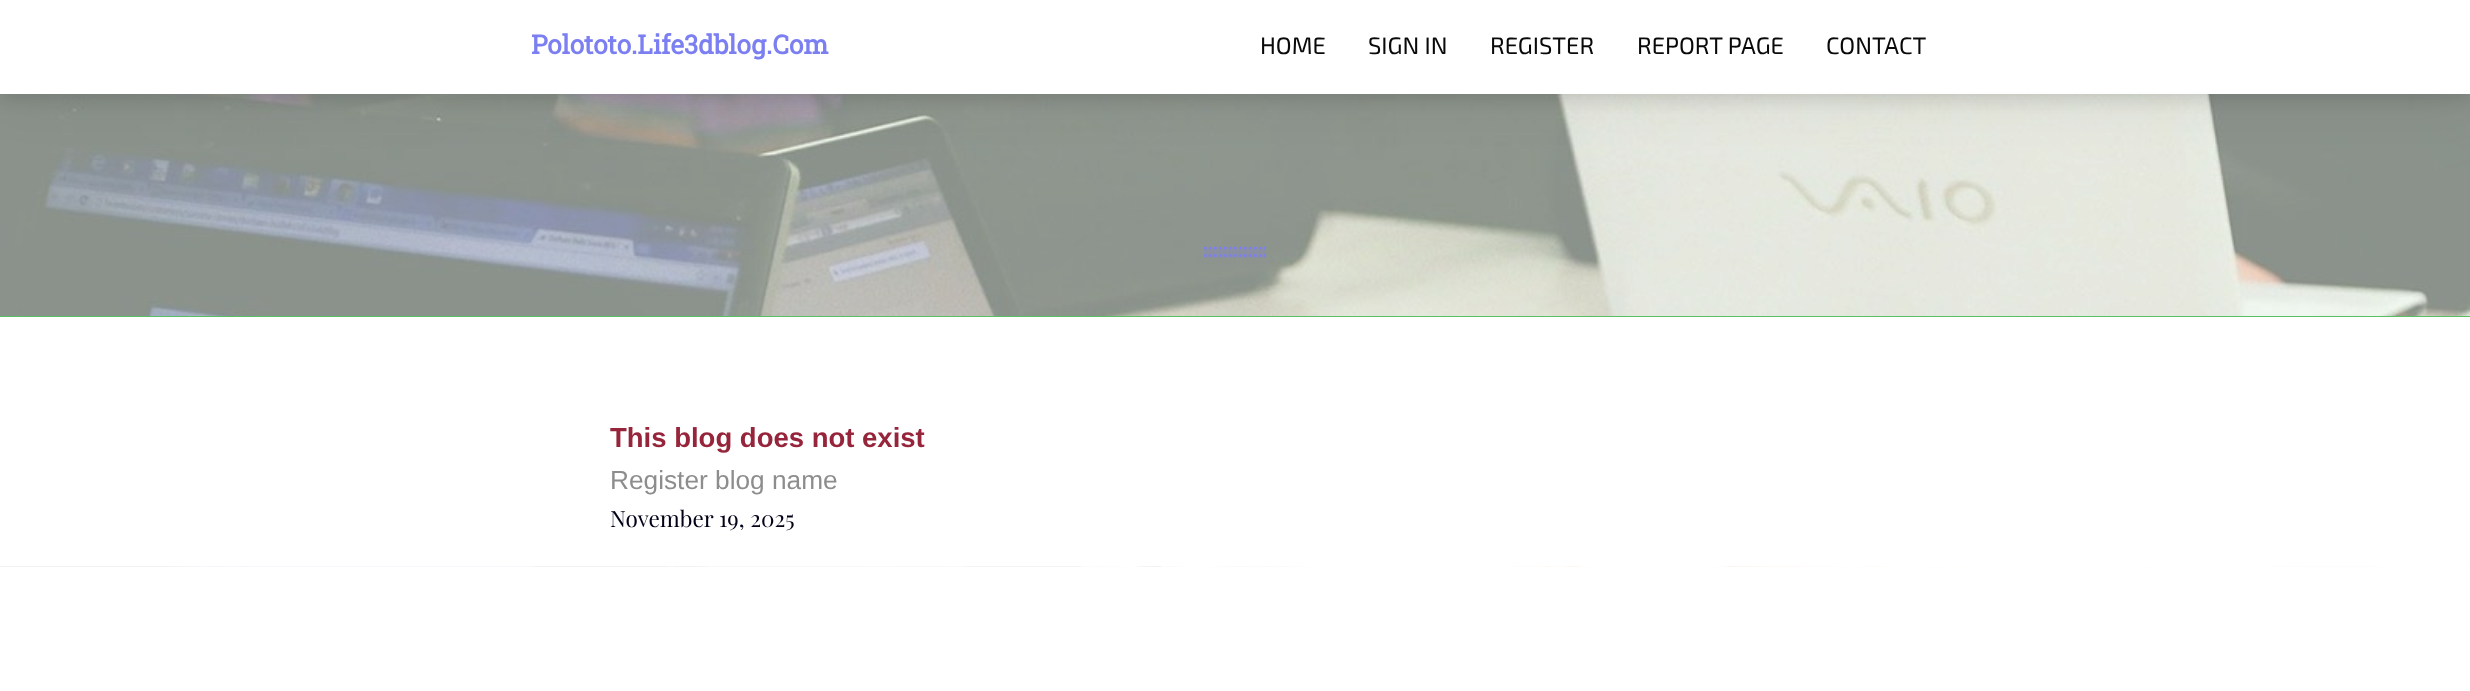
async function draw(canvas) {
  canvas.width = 2470;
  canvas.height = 691;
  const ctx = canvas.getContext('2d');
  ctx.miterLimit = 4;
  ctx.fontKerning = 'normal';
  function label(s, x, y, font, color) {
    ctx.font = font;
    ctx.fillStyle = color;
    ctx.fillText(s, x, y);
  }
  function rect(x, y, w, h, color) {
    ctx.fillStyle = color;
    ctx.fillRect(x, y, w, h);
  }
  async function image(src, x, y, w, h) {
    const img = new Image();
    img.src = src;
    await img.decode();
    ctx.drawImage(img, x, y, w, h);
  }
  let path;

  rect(0, 0, 2470, 691, '#fff');
  await image('assets/img1.png', 0, 94, 2470, 473);
  ctx.fillStyle = '#0000001a';
  ctx.filter = 'blur(7.5px)';
  ctx.beginPath();
  ctx.rect(0, 6, 2470, 94);
  ctx.fill();
  ctx.filter = 'none';
  ctx.fillStyle = '#0000000d';
  ctx.filter = 'blur(24px)';
  ctx.beginPath();
  ctx.rect(0, 11, 2470, 94);
  ctx.fill();
  ctx.filter = 'none';
  rect(0, 0, 2470, 94, '#fff');
  label('Polototo.Life3dblog.Com', 531, 54, 'bold 26.25px Roboto Slab', '#7b7ff1');
  label('HOME', 1260, 54, '23.75px "Exo 2"', '#090909');
  label('SIGN IN', 1368, 54, '23.75px "Exo 2"', '#090909');
  label('REGISTER', 1490, 54, '23.75px "Exo 2"', '#090909');
  label('REPORT PAGE', 1637, 54, '23.75px "Exo 2"', '#090909');
  label('CONTACT', 1826, 54, '23.75px "Exo 2"', '#090909');
  rect(1204, 248, 62, 10, '#8a90a1');
  path = new Path2D('M1204 248H1266M1204 255.5H1266');
  ctx.strokeStyle = '#7b7ff1';
  ctx.lineWidth = 2.5;
  ctx.setLineDash([2.5, 2.5]);
  ctx.stroke(path);
  rect(0, 317, 2470, 249, '#fff');
  rect(0, 316, 2470, 1, '#58bf63');
  label('This blog does not exist', 610, 447, 'bold 27.5px Liberation Sans', '#96243a');
  label('Register blog name', 610, 489, '26.25px Liberation Sans', '#8d8d8d');
  label('November 19, 2025', 610, 527, '22.5px Playfair Display', '#010118');
}

draw(document.querySelector('canvas'));
